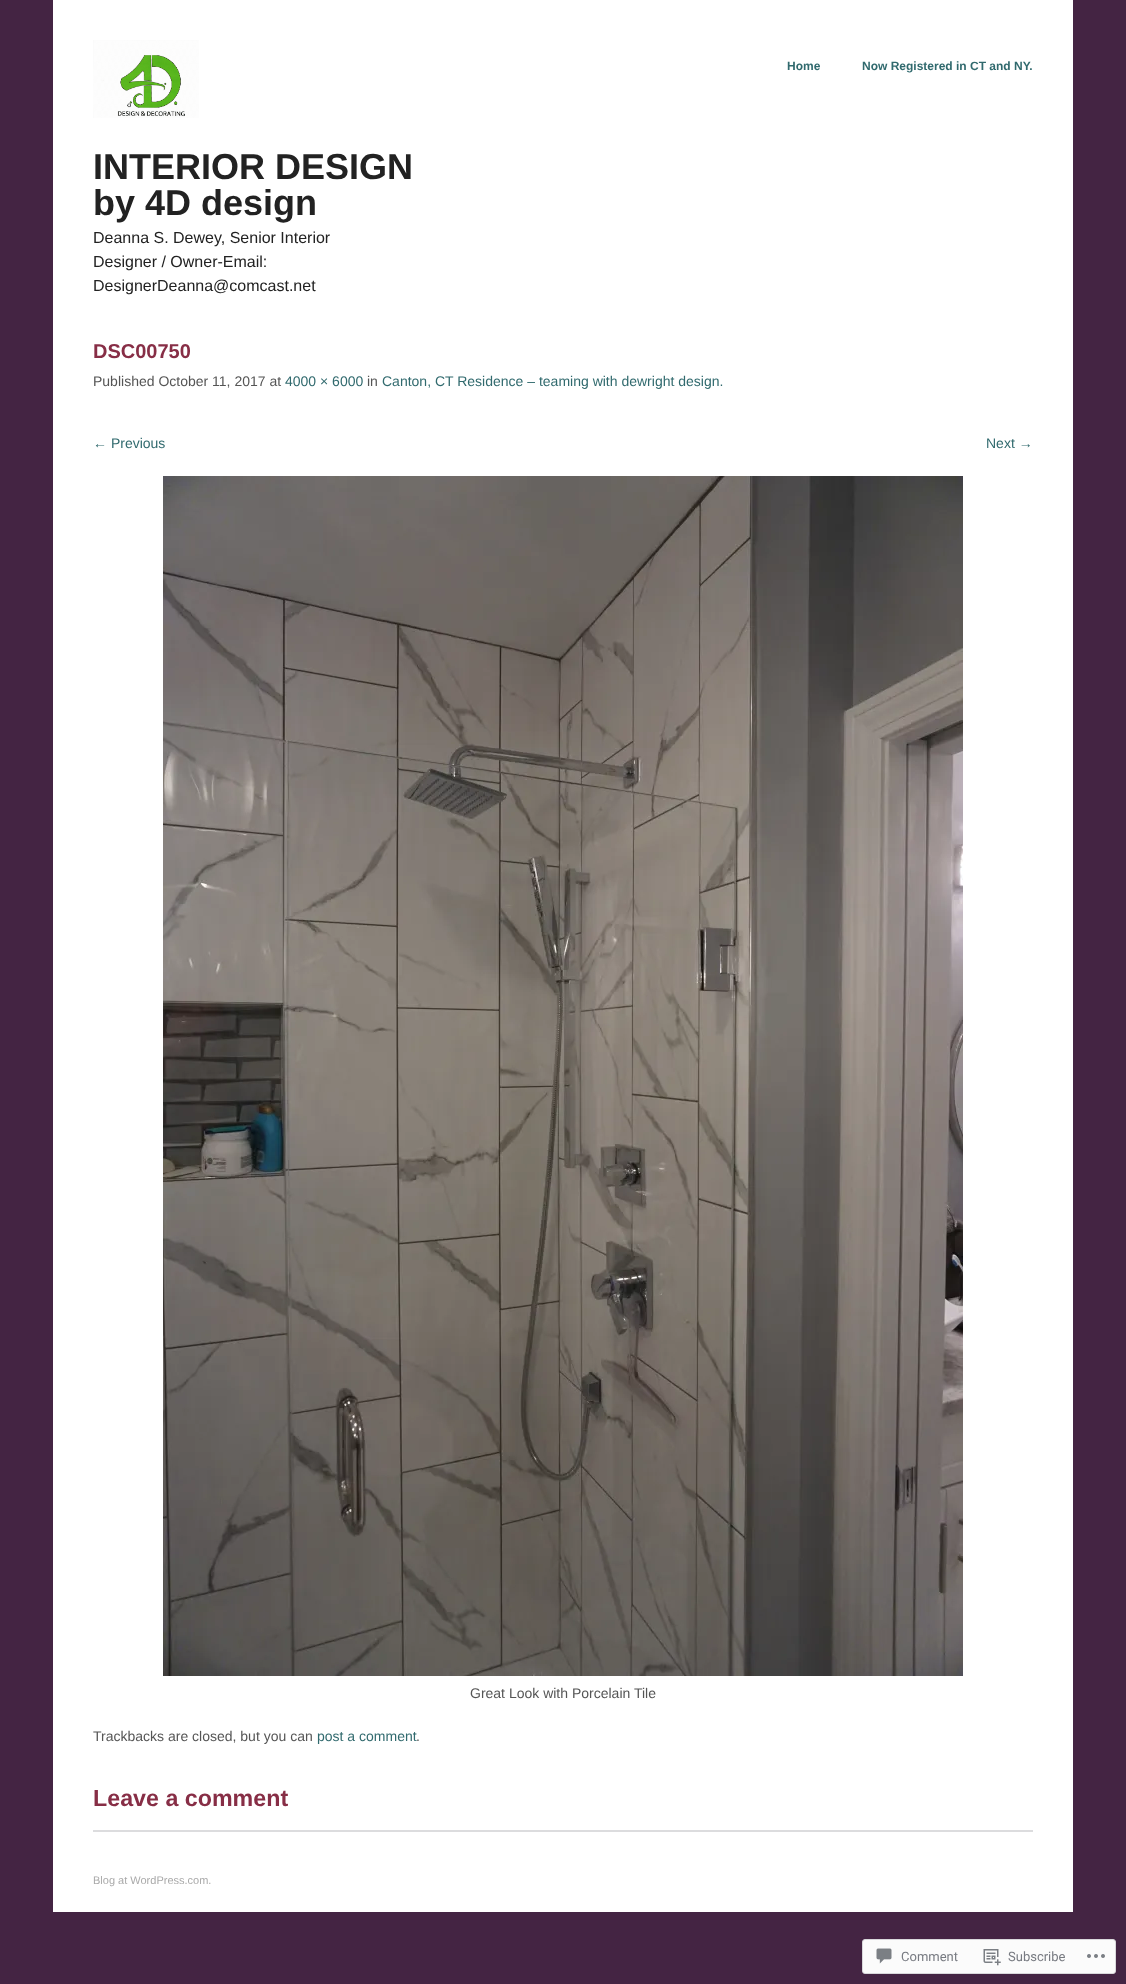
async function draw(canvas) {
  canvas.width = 1126;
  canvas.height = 1984;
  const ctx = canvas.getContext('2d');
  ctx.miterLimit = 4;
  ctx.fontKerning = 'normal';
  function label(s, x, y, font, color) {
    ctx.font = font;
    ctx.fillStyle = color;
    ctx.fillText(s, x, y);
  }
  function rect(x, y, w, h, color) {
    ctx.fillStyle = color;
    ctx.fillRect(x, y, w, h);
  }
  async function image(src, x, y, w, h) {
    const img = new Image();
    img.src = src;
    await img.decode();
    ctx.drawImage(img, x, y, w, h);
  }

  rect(0, 0, 1126, 1984, '#442443');
  rect(53, 0, 1020, 1912, '#fff');
  label('Home', 787, 70, 'bold 12px Liberation Sans', '#316a6e');
  label('Now Registered in CT and NY.', 862, 70, 'bold 12px Liberation Sans', '#316a6e');
  await image('assets/img1.png', 93, 40, 106, 78);
  label('INTERIOR DESIGN', 93, 179, 'bold 36px Liberation Sans', '#222');
  label('by 4D design', 93, 215, 'bold 36px Liberation Sans', '#222');
  label('Deanna S. Dewey, Senior Interior', 93, 243, '16px Liberation Sans', '#222');
  label('Designer / Owner-Email:', 93, 267, '16px Liberation Sans', '#222');
  label('DesignerDeanna@comcast.net', 93, 291, '16px Liberation Sans', '#222');
  label('DSC00750', 93, 358, 'bold 20px Liberation Sans', '#872e46');
  label('Published October 11, 2017 at', 93, 386, '14px Liberation Sans', '#555');
  label('4000 × 6000', 285, 386, '14px Liberation Sans', '#316a6e');
  label('in', 367, 386, '14px Liberation Sans', '#555');
  label('Canton, CT Residence – teaming with dewright design.', 382, 386, '14px Liberation Sans', '#316a6e');
  label('← Previous', 93, 448, '14px Liberation Sans', '#316a6e');
  label('Next →', 986, 448, '14px Liberation Sans', '#316a6e');
  await image('assets/img2.png', 163, 476, 800, 1200);
  label('Great Look with Porcelain Tile', 470, 1698, '14px Liberation Sans', '#555');
  label('Trackbacks are closed, but you can', 93, 1741, '14px Liberation Sans', '#555');
  label('post a comment', 317, 1741, '14px Liberation Sans', '#316a6e');
  label('.', 416, 1741, '14px Liberation Sans', '#555');
  label('Leave a comment', 93, 1806, 'bold 23.25px Liberation Sans', '#872e46');
  rect(93, 1830, 940, 2, '#dcdcde');
  label('Blog at WordPress.com.', 93, 1884, '11px Liberation Sans', '#aaa');
  ctx.fillStyle = '#fbfbfb';
  ctx.beginPath();
  ctx.roundRect(862.5, 1939.5, 253, 34, 2.5);
  ctx.fill();
  ctx.strokeStyle = '#d9d8db';
  ctx.stroke();
  await image('assets/img3.png', 876, 1948, 16, 16);
  label('Comment', 901, 1961, '13px Roboto', '#777a81');
  await image('assets/img4.png', 983, 1949, 18, 17);
  label('Subscribe', 1008, 1961, '13px Roboto', '#777a81');
  await image('assets/img5.png', 1087, 1954, 18, 4);
}

draw(document.querySelector('canvas'));
